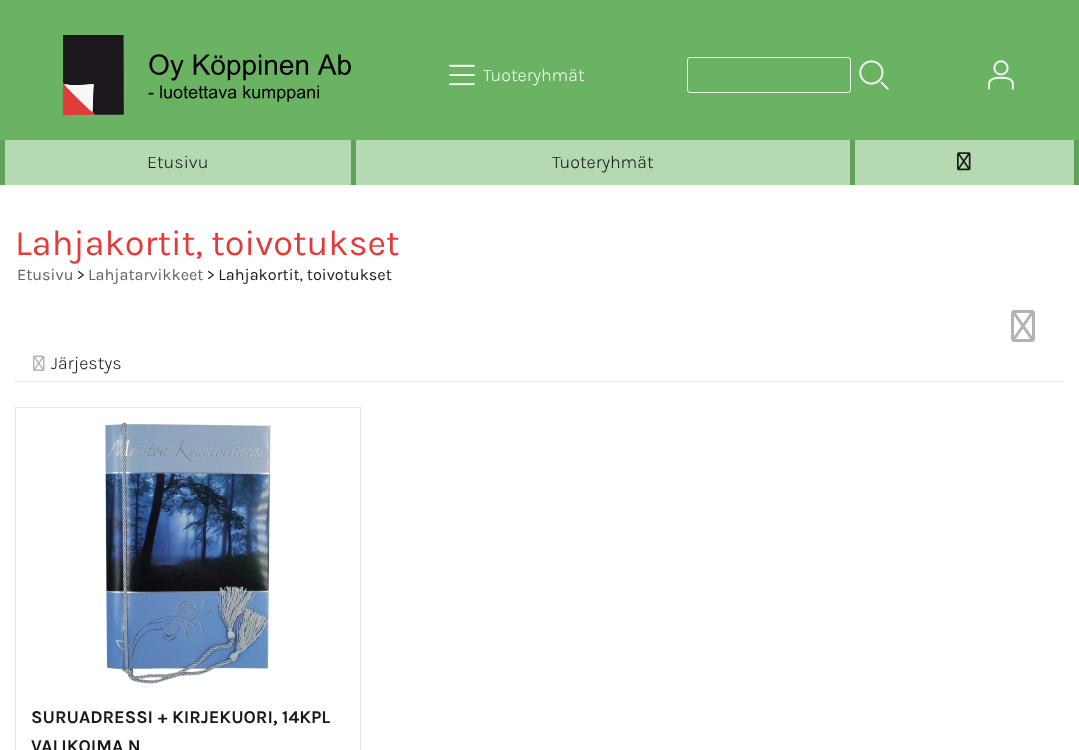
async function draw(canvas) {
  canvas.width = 1079;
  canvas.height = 750;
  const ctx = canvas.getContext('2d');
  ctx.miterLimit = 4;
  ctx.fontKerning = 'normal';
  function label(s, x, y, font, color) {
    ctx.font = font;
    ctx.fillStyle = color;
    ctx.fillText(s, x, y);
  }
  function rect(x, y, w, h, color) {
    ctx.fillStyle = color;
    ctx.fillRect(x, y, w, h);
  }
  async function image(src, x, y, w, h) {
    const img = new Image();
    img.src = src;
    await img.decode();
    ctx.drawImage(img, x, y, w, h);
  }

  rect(0, 0, 1079, 750, '#6ab362');
  await image('assets/img1.png', 63, 35, 288, 80);
  await image('assets/img2.png', 449, 64, 26, 22);
  label('Tuoteryhmät', 483, 81, '300 18px Karla', '#f0f7ef');
  ctx.beginPath();
  ctx.roundRect(687.5, 57.5, 163, 35, 2.5);
  ctx.strokeStyle = '#f0f7ef';
  ctx.stroke();
  await image('assets/img3.png', 859, 60, 30, 30);
  await image('assets/img4.png', 988, 60, 26, 30);
  rect(351, 140, 5, 45, '#5fa158');
  rect(0, 140, 5, 45, '#5fa158');
  rect(5, 140, 346, 45, '#b5d9b1');
  label('Etusivu', 147, 168, '300 18px Karla', '#191919');
  rect(850, 140, 5, 45, '#5fa158');
  rect(356, 140, 494, 45, '#b5d9b1');
  label('Tuoteryhmät', 552, 168, '300 18px Karla', '#191919');
  rect(1074, 140, 5, 45, '#5fa158');
  rect(855, 140, 219, 45, '#b5d9b1');
  await image('assets/img5.png', 957, 152, 14, 19);
  rect(0, 185, 1079, 565, '#fff');
  label('Lahjakortit, toivotukset', 15, 255, '36px Karla', '#e33b3b');
  label('Etusivu', 17, 280, '16.25px Karla', '#646464');
  label('>', 77, 280, '16.25px Karla', '#191919');
  label('Lahjatarvikkeet', 88, 280, '16.25px Karla', '#646464');
  label('> Lahjakortit, toivotukset', 207, 280, '16.25px Karla', '#191919');
  await image('assets/img6.png', 1011, 310, 24, 32);
  rect(15, 381, 1049, 1, '#e6e6e6');
  await image('assets/img7.png', 33, 355, 12, 16);
  label('Järjestys', 51, 369, '300 18px Karla', '#191919');
  ctx.strokeStyle = '#e6e6e6';
  ctx.strokeRect(15.5, 407.5, 345, 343);
  await image('assets/img8.png', 104, 422, 168, 262);
  label('SURUADRESSI + KIRJEKUORI, 14KPL', 31, 723, 'bold 18px Karla', '#191919');
  label('VALIKOIMA N', 31, 752, 'bold 18px Karla', '#191919');
}

draw(document.querySelector('canvas'));
